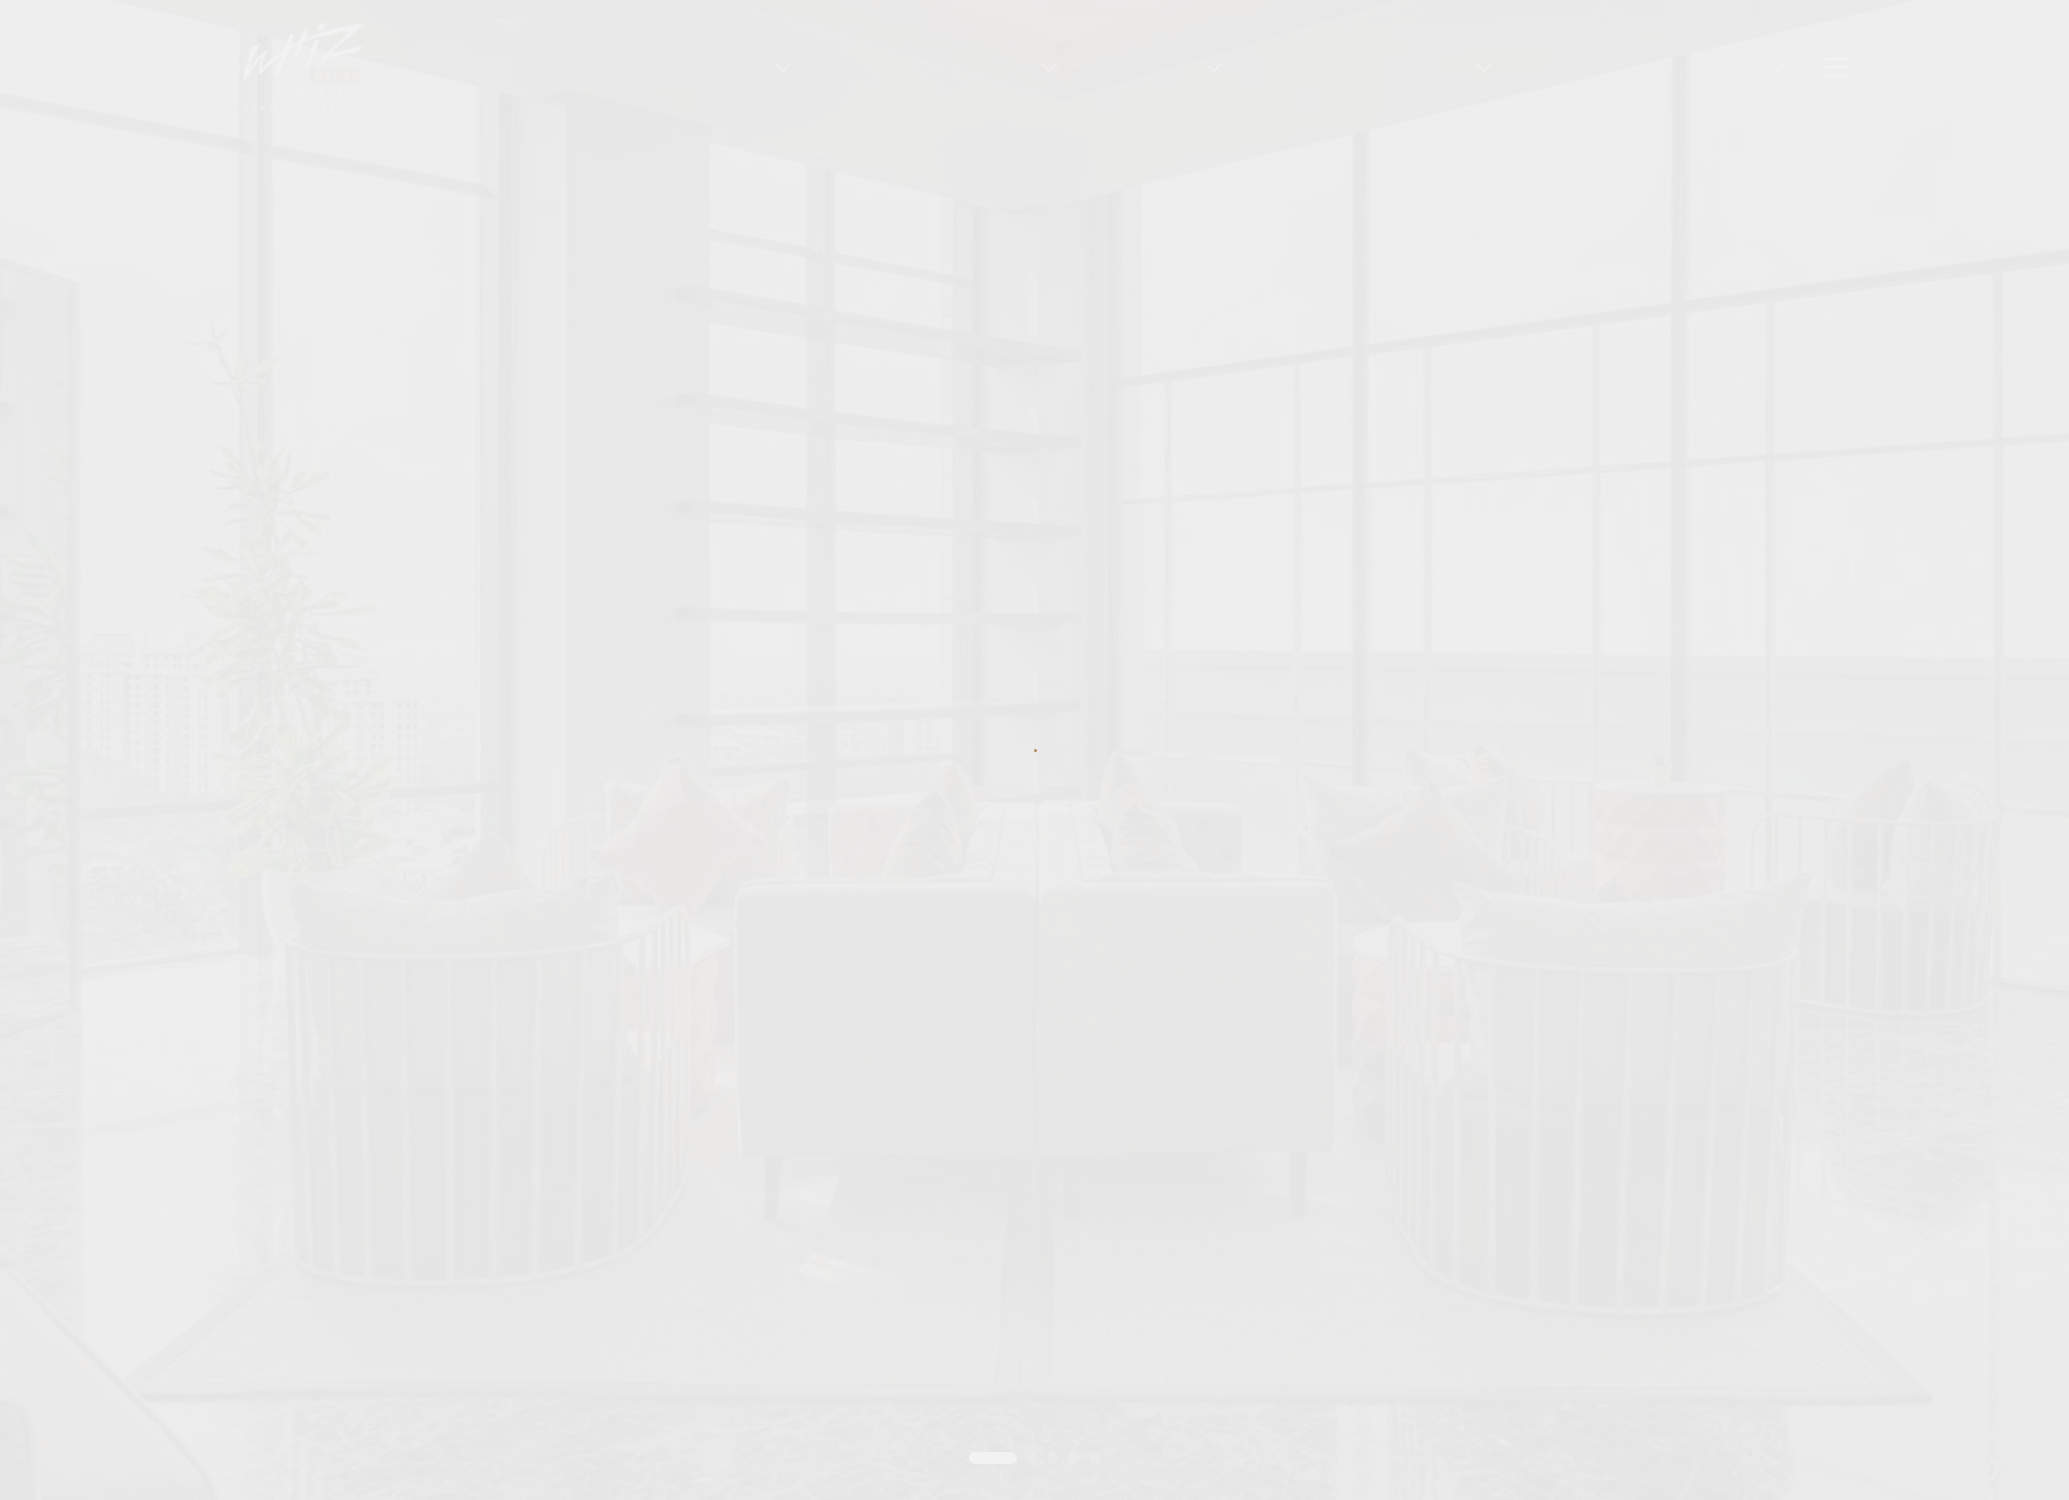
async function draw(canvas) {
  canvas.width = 2069;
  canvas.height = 1500;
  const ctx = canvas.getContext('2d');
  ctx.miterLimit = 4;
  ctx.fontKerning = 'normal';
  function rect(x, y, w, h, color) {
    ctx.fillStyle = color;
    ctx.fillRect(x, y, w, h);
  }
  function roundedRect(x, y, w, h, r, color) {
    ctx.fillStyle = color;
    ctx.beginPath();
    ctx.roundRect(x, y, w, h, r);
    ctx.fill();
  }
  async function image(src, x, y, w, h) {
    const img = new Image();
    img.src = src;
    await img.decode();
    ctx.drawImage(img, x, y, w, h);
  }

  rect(0, 0, 2069, 1500, '#fff');
  await image('assets/img1.png', 0, 0, 2069, 1500);
  roundedRect(969, 1452, 48, 12, 6, '#f2f2f2');
  ctx.fillStyle = '#f2f2f259';
  ctx.beginPath();
  ctx.arc(1032, 1458, 6, 0, 2 * Math.PI);
  ctx.fill();
  ctx.beginPath();
  ctx.arc(1053, 1458, 6, 0, 2 * Math.PI);
  ctx.fill();
  ctx.beginPath();
  ctx.arc(1074, 1458, 6, 0, 2 * Math.PI);
  ctx.fill();
  ctx.beginPath();
  ctx.arc(1095, 1458, 6, 0, 2 * Math.PI);
  ctx.fill();
  await image('assets/img2.png', 242, 22, 123, 90);
  await image('assets/img3.png', 775, 63, 16, 9);
  await image('assets/img4.png', 1041, 63, 15, 9);
  await image('assets/img5.png', 1206, 63, 15, 9);
  await image('assets/img6.png', 1476, 63, 15, 9);
  await image('assets/img7.png', 1770, 64, 15, 8);
  await image('assets/img8.png', 1825, 57, 25, 20);
  ctx.fillStyle = '#ae8b59';
  ctx.beginPath();
  ctx.arc(1035.5, 750.5, 1.5, 0, 2 * Math.PI);
  ctx.fill();
}

draw(document.querySelector('canvas'));
